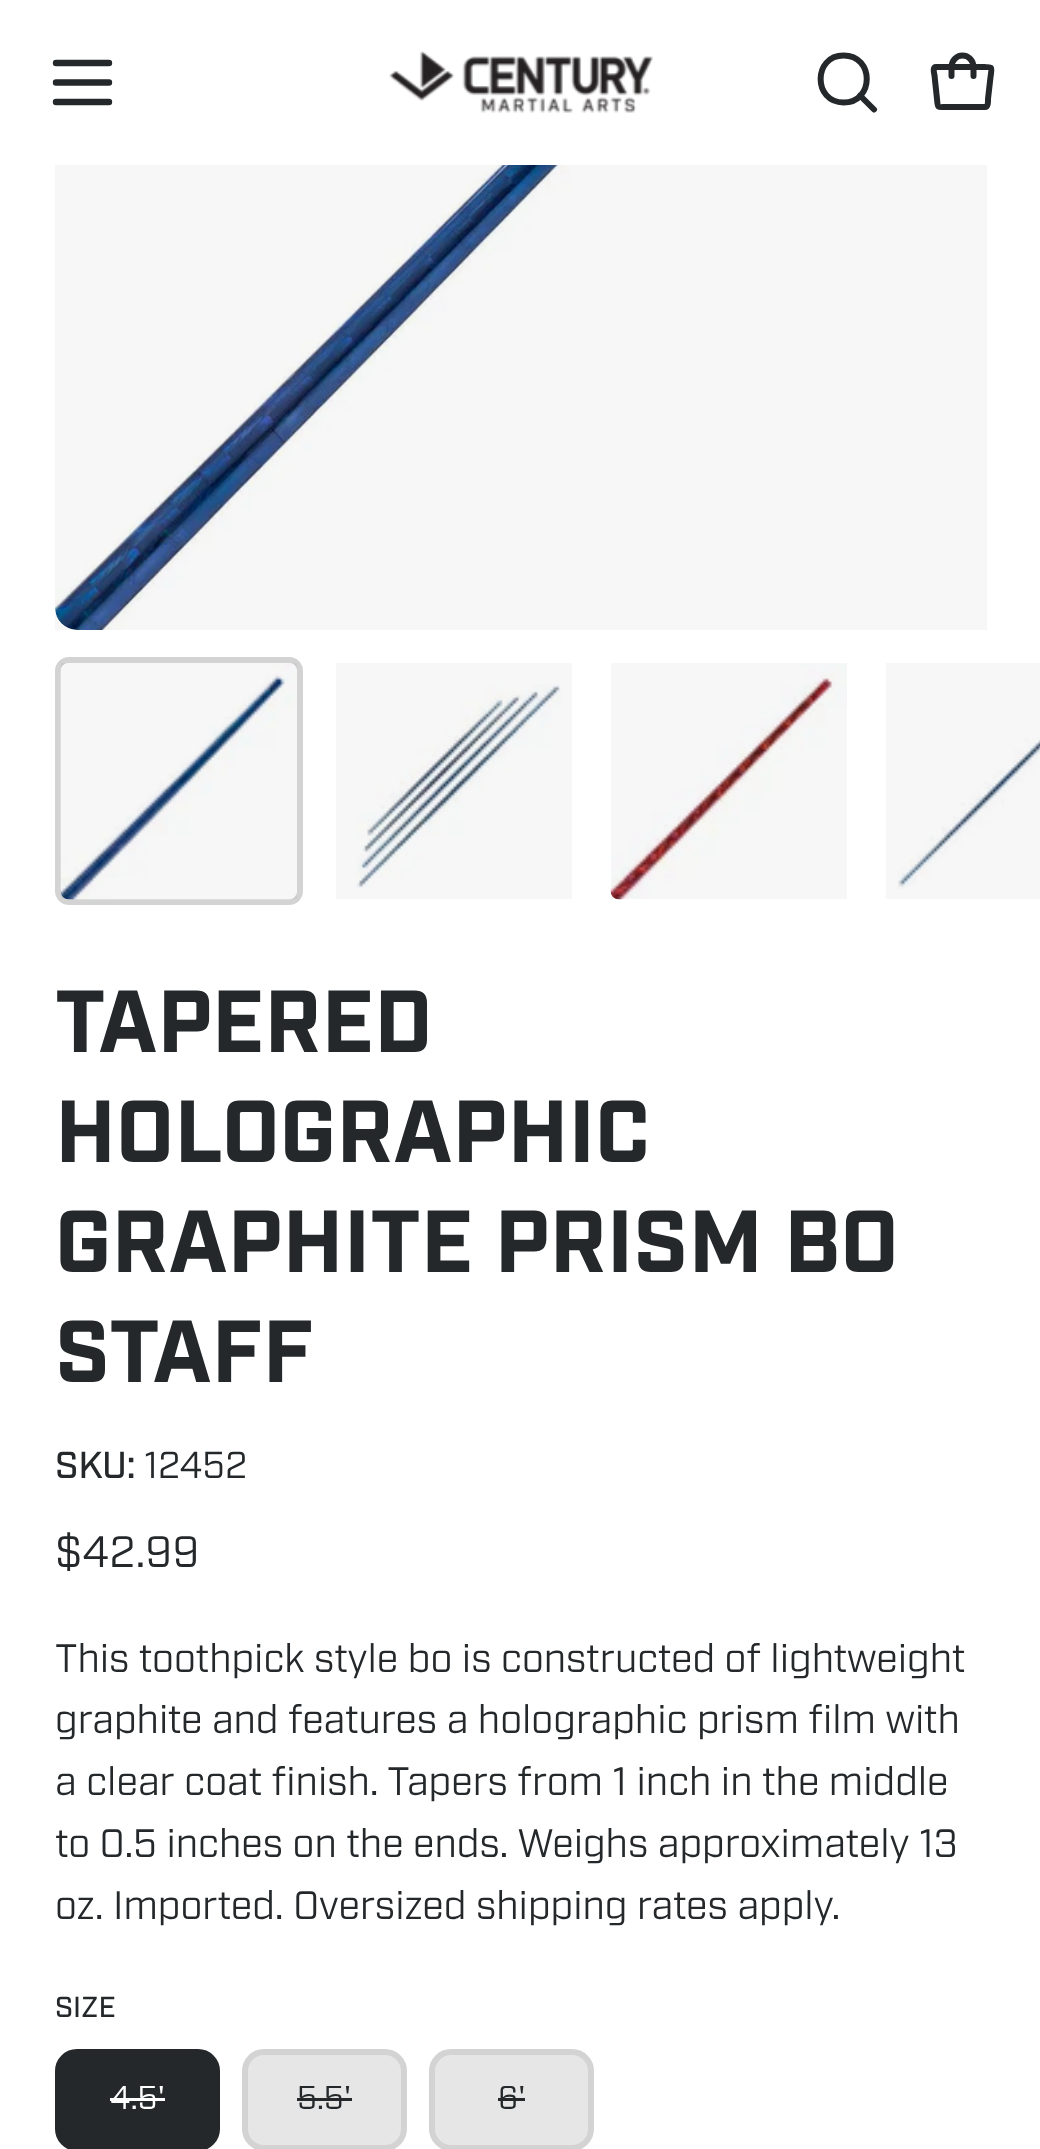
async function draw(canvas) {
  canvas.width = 1040;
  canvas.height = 2149;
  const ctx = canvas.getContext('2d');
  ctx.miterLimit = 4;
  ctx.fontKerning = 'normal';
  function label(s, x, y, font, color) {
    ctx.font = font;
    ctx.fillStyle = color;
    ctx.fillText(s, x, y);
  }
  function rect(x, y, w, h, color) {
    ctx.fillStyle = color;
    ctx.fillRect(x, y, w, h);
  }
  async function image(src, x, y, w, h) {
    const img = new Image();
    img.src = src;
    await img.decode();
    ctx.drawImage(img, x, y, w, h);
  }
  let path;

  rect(0, 0, 1040, 2149, '#fff');
  path = new Path2D('M56 82.5H109M56 63H109M56 102H109');
  ctx.strokeStyle = '#24282a';
  ctx.lineWidth = 6.4;
  ctx.lineCap = 'round';
  ctx.lineJoin = 'round';
  ctx.stroke(path);
  await image('assets/img1.png', 389, 51, 264, 62);
  path = new Path2D('M843.5 102.5C874.5 102.5 874.5 55.5 843.5 55.5C813 55.5 813 102.5 843.5 102.5ZM860 95.5L874 109.5');
  ctx.lineWidth = 6;
  ctx.stroke(path);
  path = new Path2D('M985 107H947.5C937 107 938 109 937 99L934.5 75.5C934.5 74.5 932 67 936 67H980C995 67 991.5 65.5 990 81.5L988 99C988 100.5 988.5 107 985 107Z');
  ctx.stroke(path);
  path = new Path2D('M951.5 76V67C951.5 60.5 956.5 55.5 962.5 55.5C968.5 55.5 973.5 60.5 973.5 67V76');
  ctx.stroke(path);
  await image('assets/img2.png', 55, 165, 668, 465);
  rect(55, 165, 932, 465, '#00000008');
  ctx.beginPath();
  ctx.roundRect(58, 660, 242, 242, 11);
  ctx.strokeStyle = '#d3d3d3';
  ctx.lineJoin = 'miter';
  ctx.stroke();
  await image('assets/img3.png', 60, 663, 237, 237);
  rect(61, 663, 236, 236, '#00000008');
  await image('assets/img4.png', 356, 684, 205, 204);
  rect(336, 663, 236, 236, '#00000008');
  await image('assets/img5.png', 610, 664, 237, 236);
  rect(611, 663, 236, 236, '#00000008');
  await image('assets/img6.png', 897, 737, 143, 152);
  rect(886, 663, 154, 236, '#00000008');
  label('TAPERED', 55, 1052, 'bold 88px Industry', '#24282a');
  label('HOLOGRAPHIC', 55, 1162, 'bold 88px Industry', '#24282a');
  label('GRAPHITE PRISM BO', 55, 1272, 'bold 88px Industry', '#24282a');
  label('STAFF', 55, 1382, 'bold 88px Industry', '#24282a');
  label('SKU:', 55, 1478, '500 37.5px Industry', '#24282a');
  label('12452', 144, 1478, '37.5px Industry', '#24282a');
  label('$42.99', 55, 1567, '44px Industry', '#24282a');
  label('This toothpick style bo is constructed of lightweight', 55, 1672, '39.6px Industry', '#24282a');
  label('graphite and features a holographic prism film with', 55, 1733, '39.6px Industry', '#24282a');
  label('a clear coat finish. Tapers from 1 inch in the middle', 55, 1795, '39.6px Industry', '#24282a');
  label('to 0.5 inches on the ends. Weighs approximately 13', 55, 1857, '39.6px Industry', '#24282a');
  label('oz. Imported. Oversized shipping rates apply.', 55, 1919, '39.6px Industry', '#24282a');
  label('SIZE', 55, 2017, '500 29px Industry', '#24282a');
  ctx.beginPath();
  ctx.roundRect(58, 2052, 159, 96, 19);
  ctx.fill();
  ctx.strokeStyle = '#24282a';
  ctx.stroke();
  label('4.5\'', 110, 2109, '33px Industry', '#fff');
  rect(110, 2098, 55, 3, '#fff');
  ctx.fillStyle = '#e6e6e6';
  ctx.beginPath();
  ctx.roundRect(245, 2052, 159, 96, 19);
  ctx.fill();
  ctx.strokeStyle = '#d3d3d3';
  ctx.stroke();
  label('5.5\'', 297, 2109, '33px Industry', '#24282a');
  rect(297, 2098, 55, 3, '#24282a');
  ctx.fillStyle = '#e6e6e6';
  ctx.beginPath();
  ctx.roundRect(432, 2052, 159, 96, 19);
  ctx.fill();
  ctx.stroke();
  label('6\'', 498, 2109, '33px Industry', '#24282a');
  rect(498, 2098, 27, 3, '#24282a');
}

draw(document.querySelector('canvas'));
